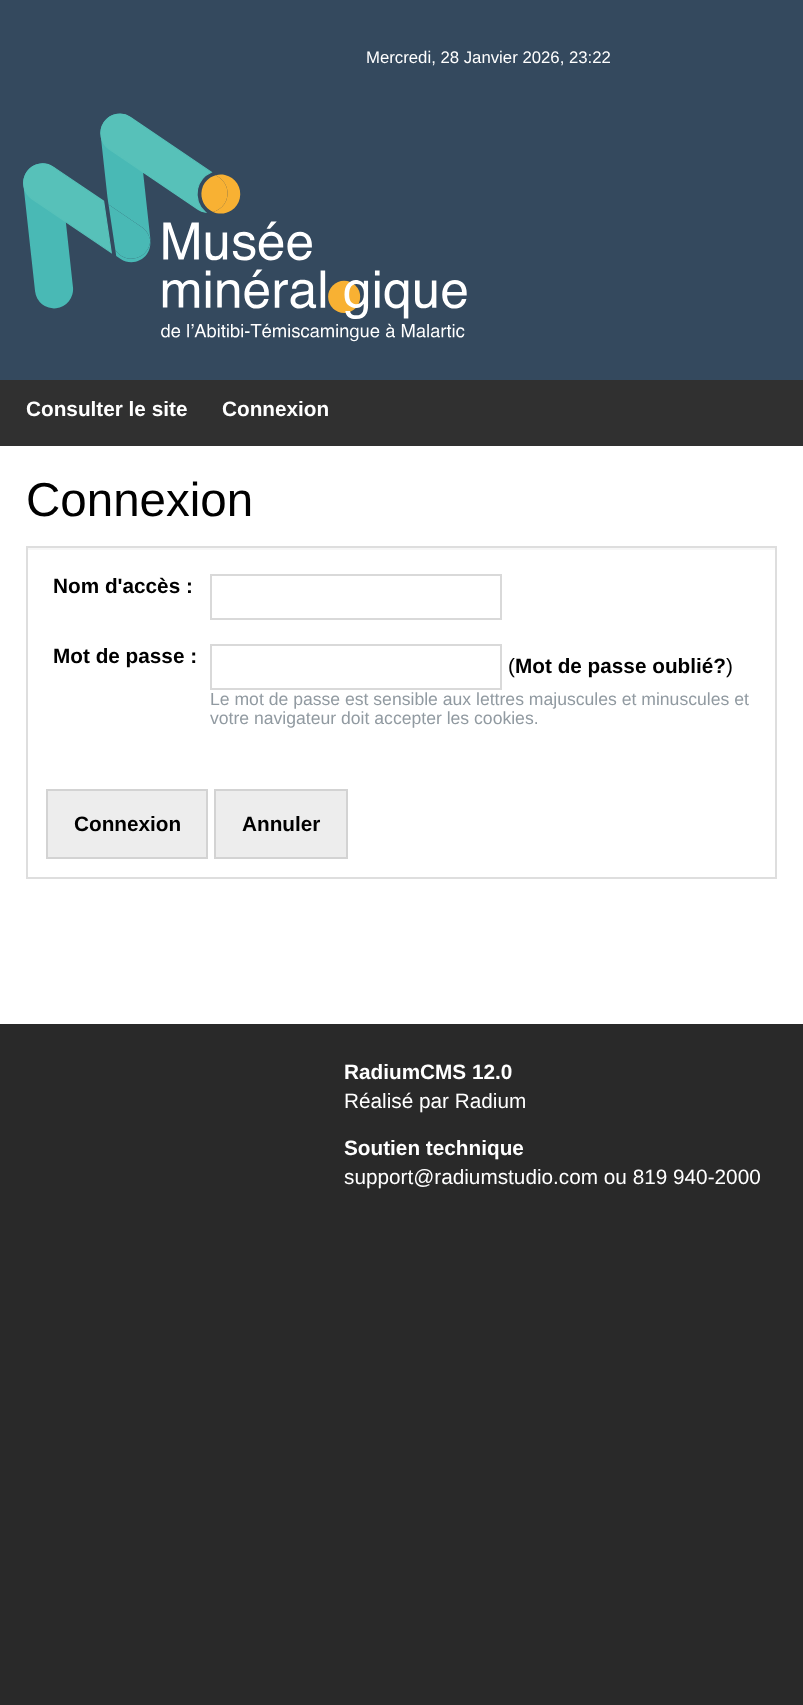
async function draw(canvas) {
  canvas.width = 803;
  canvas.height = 1705;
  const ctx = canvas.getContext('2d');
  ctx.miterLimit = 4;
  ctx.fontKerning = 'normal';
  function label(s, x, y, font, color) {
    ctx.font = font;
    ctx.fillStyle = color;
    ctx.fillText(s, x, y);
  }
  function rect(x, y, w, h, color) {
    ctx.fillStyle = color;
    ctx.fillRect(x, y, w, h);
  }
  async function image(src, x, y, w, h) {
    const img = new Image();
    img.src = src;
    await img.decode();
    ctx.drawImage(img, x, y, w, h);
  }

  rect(0, 0, 803, 1705, '#292929');
  rect(0, 0, 803, 380, '#34495e');
  label('Mercredi, 28 Janvier 2026, 23:22', 366, 63, '16.75px Liberation Sans', '#fff');
  await image('assets/img1.png', 23, 113, 444, 229);
  rect(0, 380, 803, 66, '#303030');
  label('Consulter le site', 26, 416, 'bold 20.75px Liberation Sans', '#fff');
  label('Connexion', 222, 416, 'bold 20.75px Liberation Sans', '#fff');
  rect(0, 446, 803, 578, '#fff');
  label('Connexion', 26, 516, '47.5px Liberation Sans', '#000');
  ctx.strokeStyle = '#dedede';
  ctx.lineWidth = 2;
  ctx.strokeRect(27, 547, 749, 331);
  rect(28, 548, 747, 2, '#f7f7f7');
  label('Nom d\'accès :', 53, 593, 'bold 20.75px Liberation Sans', '#000');
  ctx.strokeStyle = '#d9d9d9';
  ctx.strokeRect(211, 575, 290, 44);
  label('Mot de passe :', 53, 663, 'bold 20.75px Liberation Sans', '#000');
  ctx.strokeRect(211, 645, 290, 44);
  label('(', 508, 673, '20.75px Liberation Sans', '#000');
  label('Mot de passe oublié?', 515, 673, 'bold 20.75px Liberation Sans', '#000');
  label(')', 726, 673, '20.75px Liberation Sans', '#000');
  label('Le mot de passe est sensible aux lettres majuscules et minuscules et', 210, 705, '17.6px Liberation Sans', '#919aa1');
  label('votre navigateur doit accepter les cookies.', 210, 724, '17.6px Liberation Sans', '#919aa1');
  ctx.fillStyle = '#ededed';
  ctx.beginPath();
  ctx.rect(47, 790, 160, 68);
  ctx.fill();
  ctx.strokeStyle = '#d3d3d3';
  ctx.stroke();
  label('Connexion', 74, 831, 'bold 20.75px Liberation Sans', '#000');
  ctx.fillStyle = '#ededed';
  ctx.beginPath();
  ctx.rect(215, 790, 132, 68);
  ctx.fill();
  ctx.stroke();
  label('Annuler', 242, 831, 'bold 20.75px Liberation Sans', '#000');
  label('RadiumCMS 12.0', 344, 1079, 'bold 20.75px Liberation Sans', '#fff');
  label('Réalisé par Radium', 344, 1108, '20.75px Liberation Sans', '#fff');
  label('Soutien technique', 344, 1155, 'bold 20.75px Liberation Sans', '#fff');
  label('support@radiumstudio.com ou 819 940-2000', 344, 1184, '20.75px Liberation Sans', '#fff');
}

draw(document.querySelector('canvas'));
